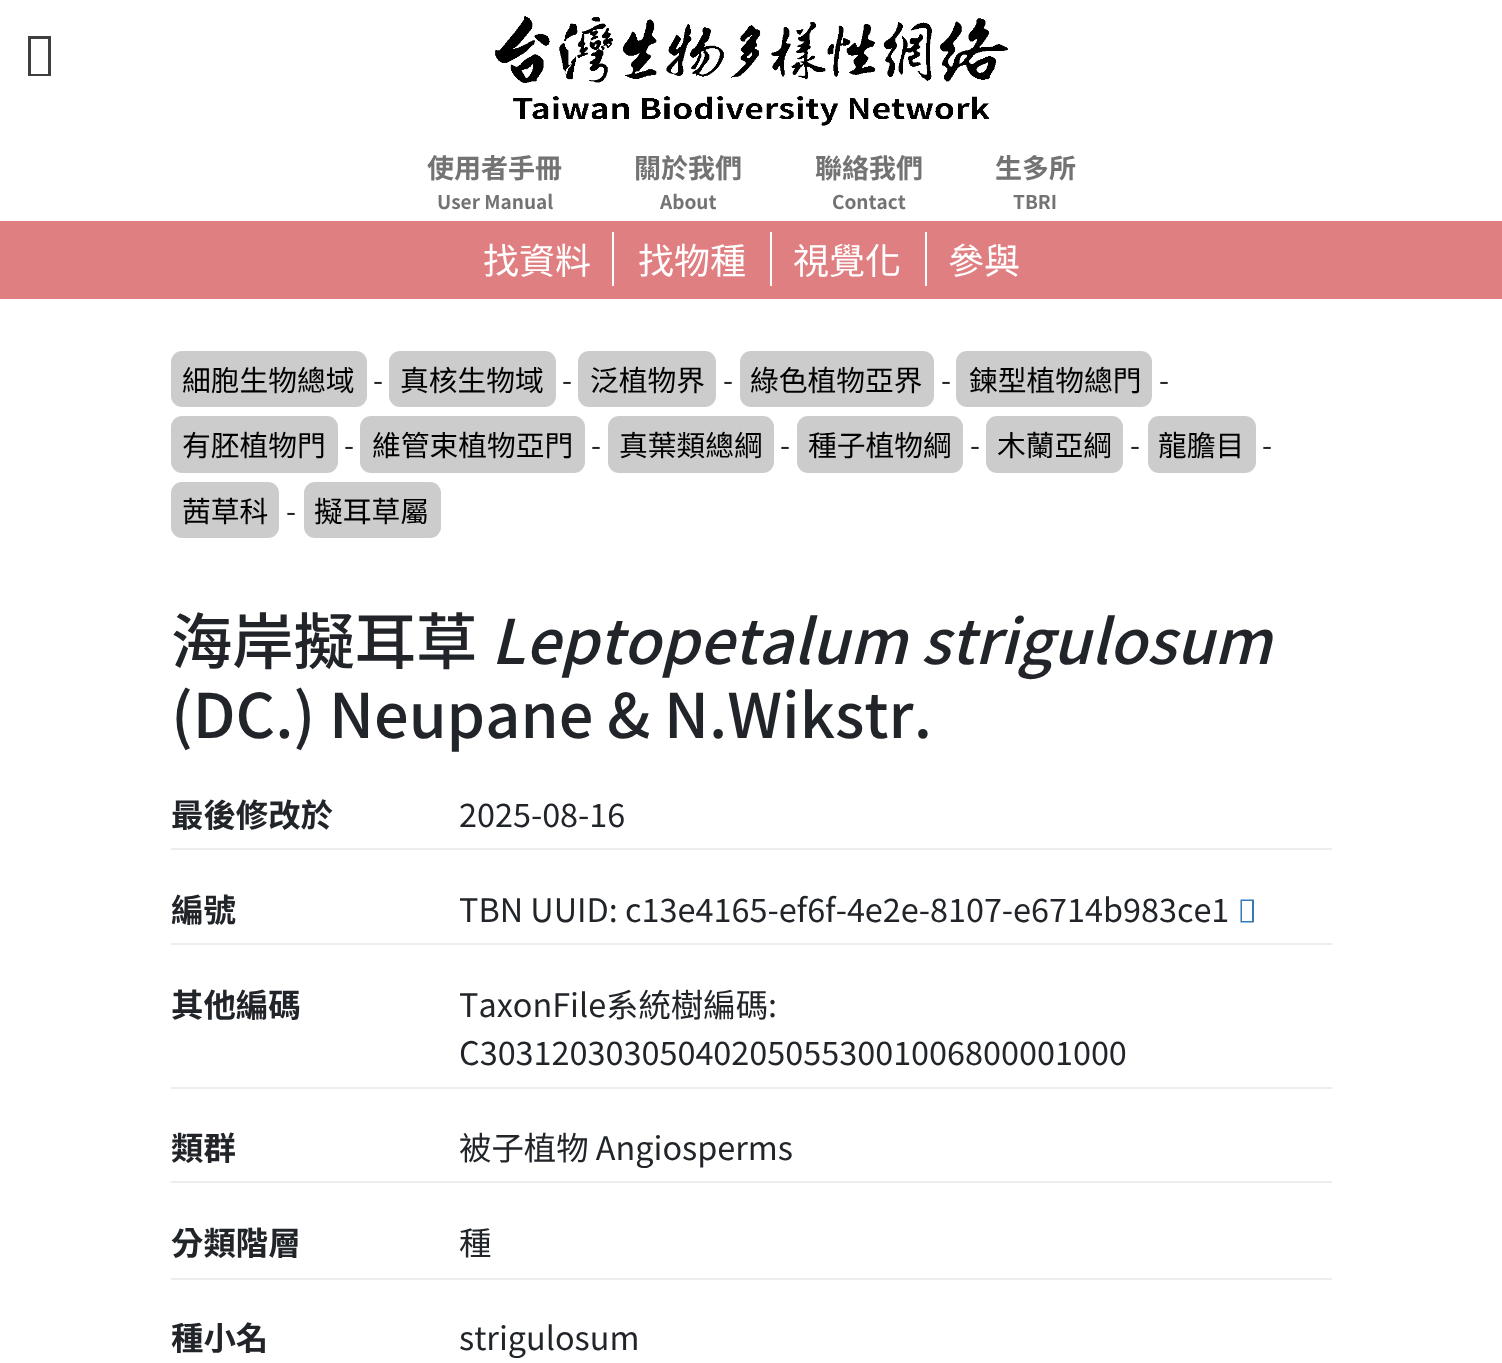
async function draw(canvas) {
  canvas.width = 1502;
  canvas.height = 1363;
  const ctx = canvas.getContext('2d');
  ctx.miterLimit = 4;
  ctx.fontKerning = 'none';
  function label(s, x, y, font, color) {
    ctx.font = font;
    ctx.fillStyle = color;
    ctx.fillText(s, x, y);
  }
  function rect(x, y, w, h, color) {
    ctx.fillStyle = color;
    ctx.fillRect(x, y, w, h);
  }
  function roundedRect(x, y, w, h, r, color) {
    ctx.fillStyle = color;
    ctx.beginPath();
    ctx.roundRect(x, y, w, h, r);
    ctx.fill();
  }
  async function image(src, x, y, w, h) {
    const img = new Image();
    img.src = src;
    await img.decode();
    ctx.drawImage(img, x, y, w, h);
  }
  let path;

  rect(0, 0, 1502, 1363, '#fff');
  ctx.fillStyle = '#403e41';
  path = new Path2D('M28 76V36H51V76ZM31 74H48V39H31Z');
  ctx.fill(path);
  await image('assets/img1.png', 495, 16, 513, 110);
  label('使用者手冊', 427, 178, 'bold 27px Noto Sans TC', '#737373');
  label('User Manual', 437, 209, 'bold 19px Noto Sans TC', '#737373');
  label('關於我們', 634, 178, 'bold 27px Noto Sans TC', '#737373');
  label('About', 660, 209, 'bold 19px Noto Sans TC', '#737373');
  label('聯絡我們', 815, 178, 'bold 27px Noto Sans TC', '#737373');
  label('Contact', 832, 209, 'bold 19px Noto Sans TC', '#737373');
  label('生多所', 995, 178, 'bold 27px Noto Sans TC', '#737373');
  label('TBRI', 1013, 209, 'bold 19px Noto Sans TC', '#737373');
  rect(0, 221, 1502, 78, '#e07f82');
  rect(612, 232, 2, 54, '#fff');
  label('找資料', 483, 274, '36px Noto Sans TC', '#fff');
  rect(770, 232, 2, 54, '#fff');
  label('找物種', 638, 274, '36px Noto Sans TC', '#fff');
  rect(925, 232, 2, 54, '#fff');
  label('視覺化', 793, 274, '36px Noto Sans TC', '#fff');
  label('參與', 948, 274, '36px Noto Sans TC', '#fff');
  roundedRect(171, 351, 196, 56, 11, '#ccc');
  label('細胞生物總域', 182, 391, '28.75px Noto Sans TC', '#000');
  label('-', 373, 391, '28.75px Noto Sans TC', '#212529');
  roundedRect(389, 351, 167, 56, 11, '#ccc');
  label('真核生物域', 400, 391, '28.75px Noto Sans TC', '#000');
  label('-', 562, 391, '28.75px Noto Sans TC', '#212529');
  roundedRect(578, 351, 138, 56, 11, '#ccc');
  label('泛植物界', 590, 391, '28.75px Noto Sans TC', '#000');
  label('-', 723, 391, '28.75px Noto Sans TC', '#212529');
  roundedRect(740, 351, 194, 56, 11, '#ccc');
  label('綠色植物亞界', 750, 391, '28.75px Noto Sans TC', '#000');
  label('-', 941, 391, '28.75px Noto Sans TC', '#212529');
  roundedRect(956, 351, 196, 56, 11, '#ccc');
  label('鍊型植物總門', 969, 391, '28.75px Noto Sans TC', '#000');
  label('-', 1159, 391, '28.75px Noto Sans TC', '#212529');
  roundedRect(171, 416, 167, 57, 11, '#ccc');
  label('有胚植物門', 182, 456, '28.75px Noto Sans TC', '#000');
  label('-', 344, 456, '28.75px Noto Sans TC', '#212529');
  roundedRect(360, 416, 225, 57, 11, '#ccc');
  label('維管束植物亞門', 372, 456, '28.75px Noto Sans TC', '#000');
  label('-', 591, 456, '28.75px Noto Sans TC', '#212529');
  roundedRect(608, 416, 166, 57, 11, '#ccc');
  label('真葉類總綱', 619, 456, '28.75px Noto Sans TC', '#000');
  label('-', 780, 456, '28.75px Noto Sans TC', '#212529');
  roundedRect(797, 416, 166, 57, 11, '#ccc');
  label('種子植物綱', 808, 456, '28.75px Noto Sans TC', '#000');
  label('-', 970, 456, '28.75px Noto Sans TC', '#212529');
  roundedRect(986, 416, 137, 57, 11, '#ccc');
  label('木蘭亞綱', 997, 456, '28.75px Noto Sans TC', '#000');
  label('-', 1130, 456, '28.75px Noto Sans TC', '#212529');
  roundedRect(1148, 416, 108, 57, 11, '#ccc');
  label('龍膽目', 1158, 456, '28.75px Noto Sans TC', '#000');
  label('-', 1262, 456, '28.75px Noto Sans TC', '#212529');
  roundedRect(171, 482, 108, 56, 11, '#ccc');
  label('茜草科', 182, 522, '28.75px Noto Sans TC', '#000');
  label('-', 286, 522, '28.75px Noto Sans TC', '#212529');
  roundedRect(304, 482, 137, 56, 11, '#ccc');
  label('擬耳草屬', 314, 522, '28.75px Noto Sans TC', '#000');
  label('海岸擬耳草', 171, 664, '500 61.25px Noto Sans TC', '#212529');
  label('Leptopetalum strigulosum', 491, 664, 'italic 500 61.25px Noto Sans TC', '#212529');
  label('(DC.) Neupane & N.Wikstr.', 171, 738, '500 61.25px Noto Sans TC', '#212529');
  rect(171, 848, 1161, 2, '#ededed');
  label('最後修改於', 171, 827, 'bold 32.4px Noto Sans TC', '#212529');
  label('2025-08-16', 459, 827, '32.4px Noto Sans TC', '#212529');
  rect(171, 943, 1161, 2, '#ededed');
  label('編號', 171, 922, 'bold 32.4px Noto Sans TC', '#212529');
  label('TBN UUID: c13e4165-ef6f-4e2e-8107-e6714b983ce1', 459, 922, '32.4px Noto Sans TC', '#212529');
  ctx.fillStyle = '#337ab7';
  path = new Path2D('M1240.5 922.5V899.5H1254V922.5ZM1242 921H1252V901H1242Z');
  ctx.fill(path);
  rect(171, 1087, 1161, 2, '#ededed');
  label('其他編碼', 171, 1017, 'bold 32.4px Noto Sans TC', '#212529');
  label('TaxonFile系統樹編碼:', 459, 1017, '32.4px Noto Sans TC', '#212529');
  label('C303120303050402050553001006800001000', 459, 1065, '32.4px Noto Sans TC', '#212529');
  rect(171, 1181, 1161, 2, '#ededed');
  label('類群', 171, 1160, 'bold 32.4px Noto Sans TC', '#212529');
  label('被子植物 Angiosperms', 459, 1160, '32.4px Noto Sans TC', '#212529');
  rect(171, 1278, 1161, 2, '#ededed');
  label('分類階層', 171, 1255, 'bold 32.4px Noto Sans TC', '#212529');
  label('種', 459, 1255, '32.4px Noto Sans TC', '#212529');
  label('種小名', 171, 1350, 'bold 32.4px Noto Sans TC', '#212529');
  label('strigulosum', 459, 1350, '32.4px Noto Sans TC', '#212529');
}

draw(document.querySelector('canvas'));
